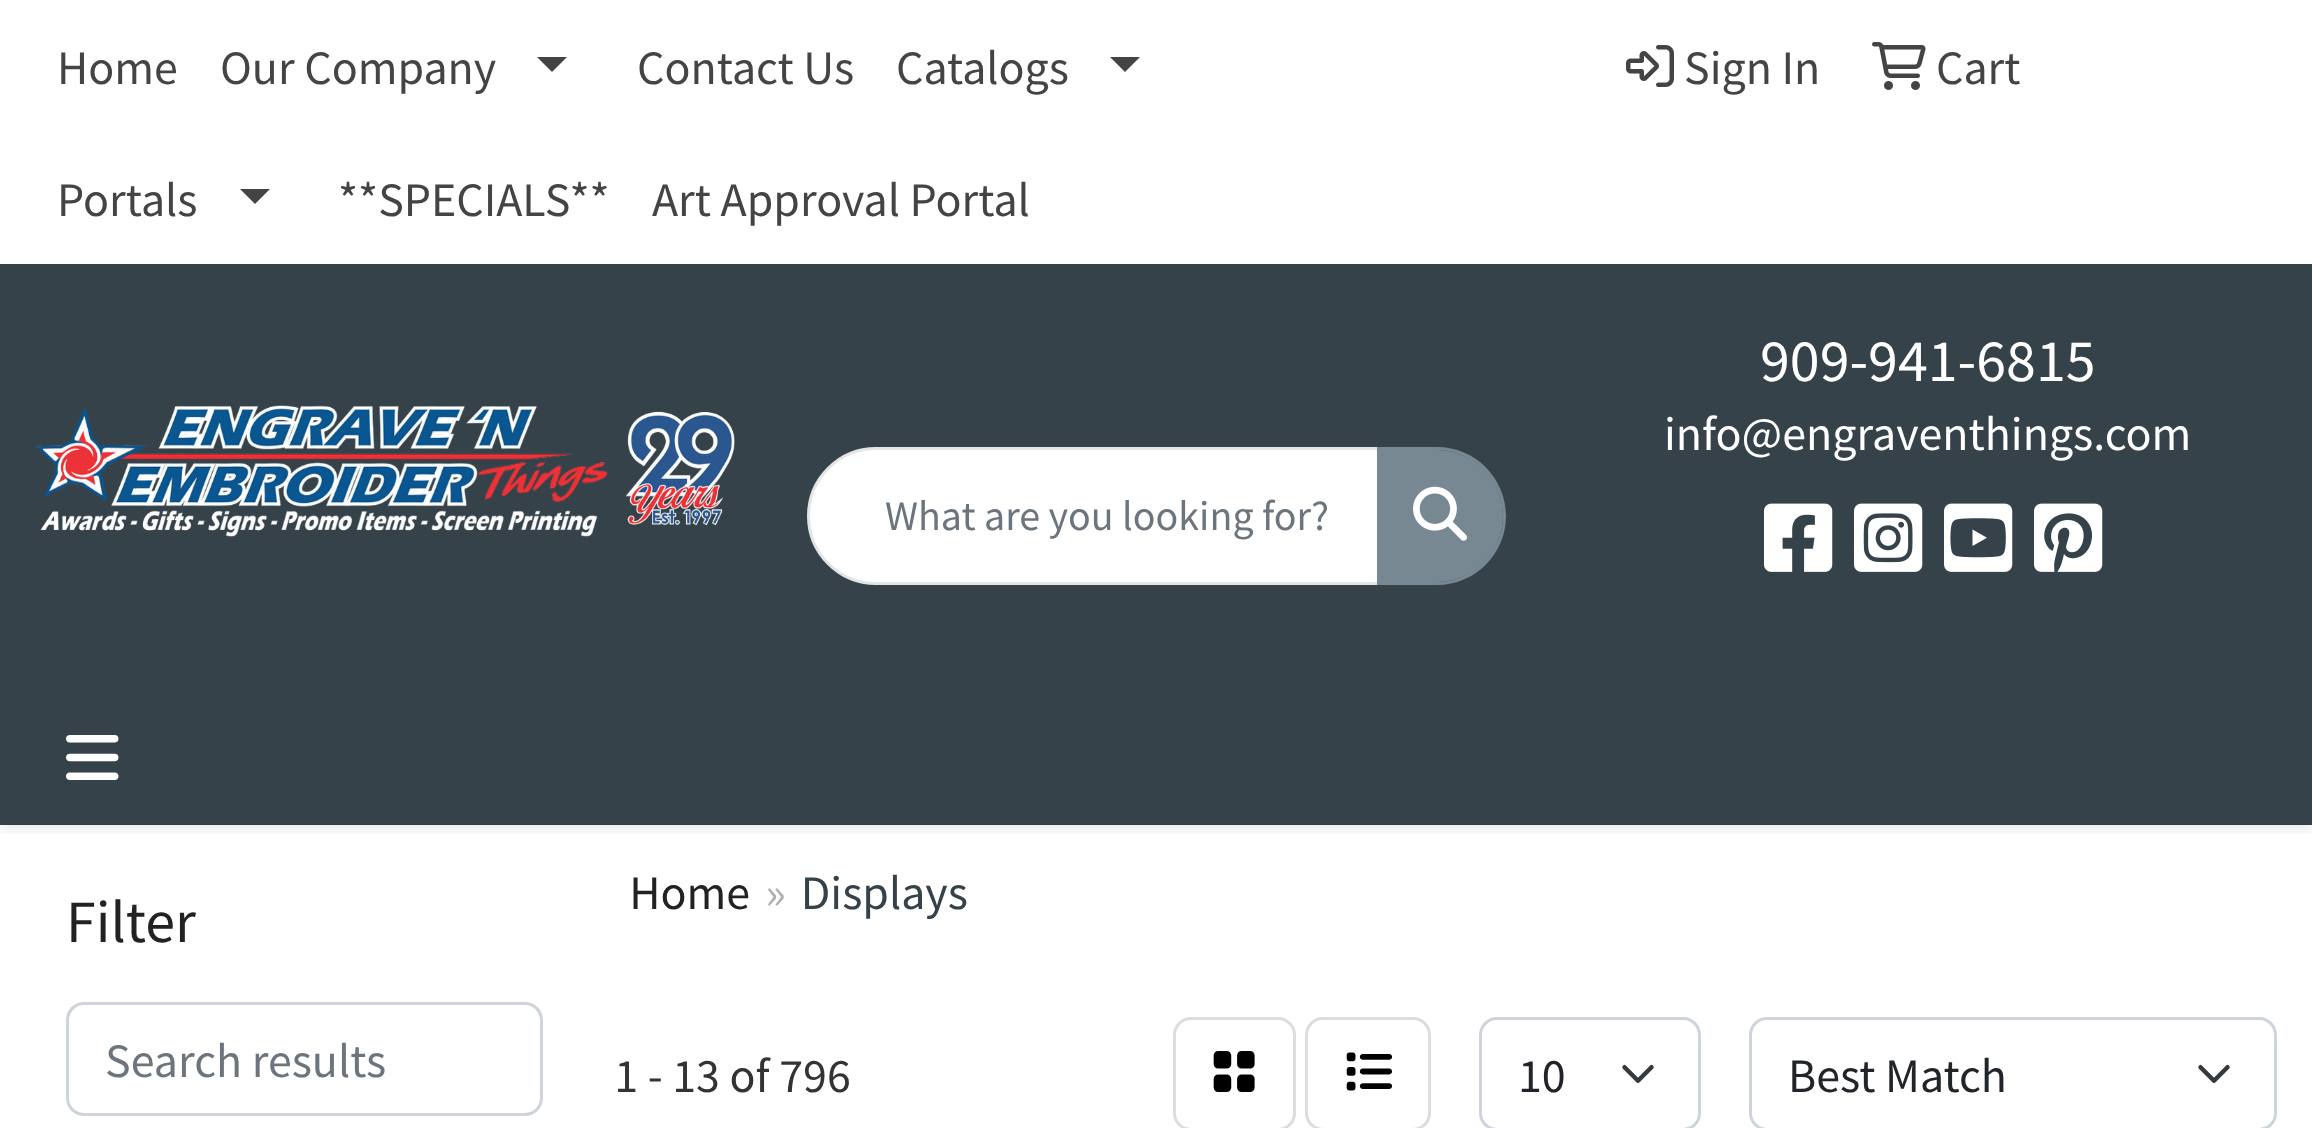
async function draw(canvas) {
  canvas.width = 2312;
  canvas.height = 1128;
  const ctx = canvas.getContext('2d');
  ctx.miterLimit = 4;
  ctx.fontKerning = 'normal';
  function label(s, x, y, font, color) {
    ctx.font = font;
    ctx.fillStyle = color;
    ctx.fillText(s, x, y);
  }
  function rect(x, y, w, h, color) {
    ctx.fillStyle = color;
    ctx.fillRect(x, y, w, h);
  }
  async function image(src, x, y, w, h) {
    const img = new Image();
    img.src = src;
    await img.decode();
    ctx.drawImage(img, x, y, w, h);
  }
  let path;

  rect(0, 0, 2312, 1128, '#fff');
  rect(0, 264, 2312, 561, '#36424a');
  label('Home', 57, 84, '48px Source Sans Pro', '#444');
  label('Our Company', 220, 84, '48px Source Sans Pro', '#444');
  path = new Path2D('M537 57H567L552 72Z');
  ctx.fill(path);
  label('Contact Us', 637, 84, '48px Source Sans Pro', '#444');
  label('Catalogs', 896, 84, '48px Source Sans Pro', '#444');
  path = new Path2D('M1110 57H1140L1125 72Z');
  ctx.fill(path);
  label('Portals', 57, 216, '48px Source Sans Pro', '#444');
  path = new Path2D('M240 189H270L255 204Z');
  ctx.fill(path);
  label('**SPECIALS**', 338, 216, '48px Source Sans Pro', '#444');
  label('Art Approval Portal', 652, 216, '48px Source Sans Pro', '#444');
  await image('assets/img1.png', 1626, 45, 48, 42);
  label('Sign In', 1684, 84, '48px Source Sans Pro', '#444');
  await image('assets/img2.png', 1872, 42, 54, 48);
  label('Cart', 1936, 84, '48px Source Sans Pro', '#444');
  await image('assets/img3.png', 36, 405, 699, 132);
  ctx.fillStyle = '#fff';
  ctx.beginPath();
  ctx.roundRect(808.5, 448.5, 570, 135, [67.5, 0, 0, 67.5]);
  ctx.fill();
  ctx.strokeStyle = '#e4e4e4';
  ctx.lineWidth = 3;
  ctx.stroke();
  label('What are you looking for?', 885, 530, '42px Source Sans Pro', '#6c757d');
  ctx.fillStyle = '#788892';
  ctx.beginPath();
  ctx.roundRect(1377, 450, 126, 132, [0, 66, 66, 0]);
  ctx.fill();
  path = new Path2D('M1377 447H1437C1475 447 1506 478 1506 516C1506 554 1475 585 1437 585H1377ZM1377 450H1437C1473 450 1503 480 1503 516C1503 552 1473 582 1437 582H1377Z');
  ctx.fill(path, 'evenodd');
  await image('assets/img4.png', 1413, 486, 54, 55);
  label('909-941-6815', 1760, 381, '60px Source Sans Pro', '#fff');
  label('info@engraventhings.com', 1664, 450, '48px Source Sans Pro', '#fff');
  await image('assets/img5.png', 1764, 503, 69, 69);
  await image('assets/img6.png', 1854, 503, 69, 69);
  await image('assets/img7.png', 1944, 503, 69, 69);
  await image('assets/img8.png', 2034, 503, 69, 69);
  ctx.save();
  ctx.beginPath();
  ctx.rect(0, 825, 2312, 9);
  ctx.clip();
  ctx.fillStyle = '#00000012';
  ctx.filter = 'blur(6px)';
  ctx.beginPath();
  ctx.rect(0, 699, 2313, 132);
  ctx.fill();
  ctx.filter = 'none';
  ctx.restore();
  await image('assets/img9.png', 66, 735, 53, 45);
  await image('assets/img10.png', 66, 874, 2211, 254);
}

draw(document.querySelector('canvas'));
